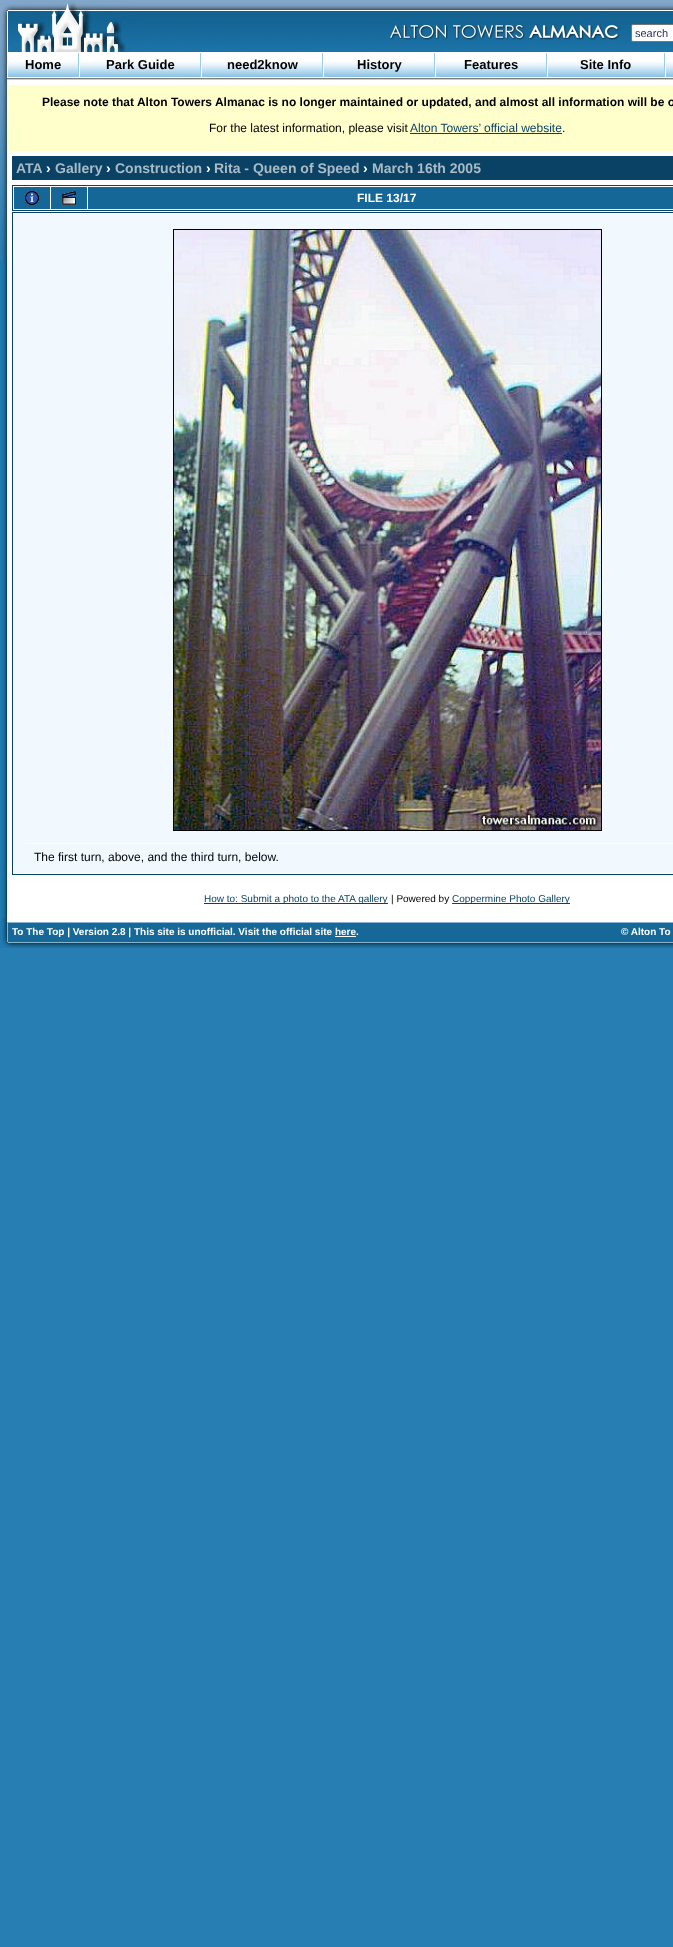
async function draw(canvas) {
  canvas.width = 673;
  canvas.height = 1947;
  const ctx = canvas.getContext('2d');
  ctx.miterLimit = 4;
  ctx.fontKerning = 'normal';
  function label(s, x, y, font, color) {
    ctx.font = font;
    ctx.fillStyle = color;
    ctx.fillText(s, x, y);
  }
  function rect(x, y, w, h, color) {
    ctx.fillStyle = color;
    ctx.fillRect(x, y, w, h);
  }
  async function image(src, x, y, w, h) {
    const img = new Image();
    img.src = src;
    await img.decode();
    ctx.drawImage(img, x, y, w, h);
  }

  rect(0, 0, 673, 1947, '#267eb2');
  rect(7, 151, 666, 767, '#fff');
  await image('assets/img1.png', 0, 904, 7, 14);
  await image('assets/img2.png', 0, 0, 673, 85);
  await image('assets/img3.png', 12, 1, 118, 51);
  await image('assets/img4.png', 389, 24, 231, 16);
  ctx.beginPath();
  ctx.roundRect(631.5, 24.5, 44, 17, 1.5);
  ctx.fill();
  ctx.strokeStyle = '#767676';
  ctx.stroke();
  label('search', 635, 37, '11px Liberation Sans', '#2e3066');
  rect(8, 52, 665, 1, '#fff');
  rect(79, 53, 587, 20, '#fff');
  rect(8, 76, 70, 1, '#8ec5e7');
  await image('assets/img5.png', 8, 53, 70, 23);
  label('Home', 25, 69, 'bold 13px Liberation Sans', '#000');
  rect(78, 53, 1, 24, '#9bcce9');
  rect(80, 76, 120, 1, '#8ec5e7');
  await image('assets/img6.png', 80, 53, 120, 23);
  label('Park Guide', 106, 69, 'bold 13px Liberation Sans', '#000');
  rect(200, 53, 1, 24, '#9bcce9');
  rect(202, 76, 120, 1, '#8ec5e7');
  await image('assets/img6.png', 202, 53, 120, 23);
  label('need2know', 227, 69, 'bold 13px Liberation Sans', '#000');
  rect(322, 53, 1, 24, '#9bcce9');
  rect(324, 76, 110, 1, '#8ec5e7');
  await image('assets/img7.png', 324, 53, 110, 23);
  label('History', 357, 69, 'bold 13px Liberation Sans', '#000');
  rect(434, 53, 1, 24, '#9bcce9');
  rect(436, 76, 110, 1, '#8ec5e7');
  await image('assets/img7.png', 436, 53, 110, 23);
  label('Features', 464, 69, 'bold 13px Liberation Sans', '#000');
  rect(546, 53, 1, 24, '#9bcce9');
  rect(548, 76, 116, 1, '#8ec5e7');
  await image('assets/img8.png', 548, 53, 116, 23);
  label('Site Info', 580, 69, 'bold 13px Liberation Sans', '#000');
  rect(664, 53, 1, 24, '#9bcce9');
  rect(666, 76, 7, 1, '#8ec5e7');
  await image('assets/img9.png', 666, 53, 7, 23);
  await image('assets/img10.png', 7, 78, 666, 2);
  await image('assets/img11.png', 0, 75, 7, 185);
  rect(7, 85, 666, 66, '#ffc');
  label('Please note that Alton Towers Almanac is no longer maintained or updated, and almost all information will be o', 42, 106, 'bold 12px Liberation Sans', '#000');
  label('For the latest information, please visit', 209, 132, '12px Liberation Sans', '#000');
  label('Alton Towers’ official website', 410, 132, '12px Liberation Sans', '#094264');
  rect(410, 133, 152, 1, '#094264');
  label('.', 562, 132, '12px Liberation Sans', '#000');
  await image('assets/img12.png', 0, 260, 7, 644);
  rect(12, 156, 661, 24, '#094264');
  label('ATA', 16, 173, 'bold 14px Liberation Sans', '#aabbc5');
  label('›', 46, 173, 'bold 14px Liberation Sans', '#fff');
  label('Gallery', 55, 173, 'bold 14px Liberation Sans', '#aabbc5');
  label('›', 106, 173, 'bold 14px Liberation Sans', '#fff');
  label('Construction', 115, 173, 'bold 14px Liberation Sans', '#aabbc5');
  label('›', 206, 173, 'bold 14px Liberation Sans', '#fff');
  label('Rita - Queen of Speed', 214, 173, 'bold 14px Liberation Sans', '#aabbc5');
  label('›', 363, 173, 'bold 14px Liberation Sans', '#fff');
  label('March 16th 2005', 372, 173, 'bold 14px Liberation Sans', '#aabbc5');
  ctx.strokeStyle = '#094264';
  ctx.strokeRect(12.5, 185.5, 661, 25);
  rect(14, 187, 36, 22, '#156798');
  await image('assets/img13.png', 25, 191, 14, 14);
  rect(51, 187, 36, 22, '#156798');
  await image('assets/img14.png', 62, 191, 14, 14);
  rect(88, 187, 585, 22, '#156798');
  label('FILE 13/17', 357, 202, 'bold 12px Liberation Sans', '#fff');
  ctx.strokeRect(12.5, 212.5, 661, 662);
  rect(14, 214, 659, 659, '#f1f9ff');
  ctx.strokeStyle = '#000';
  ctx.strokeRect(173.5, 229.5, 428, 601);
  await image('assets/img15.png', 174, 230, 427, 600);
  rect(24, 843, 649, 1, '#fff');
  label('The first turn, above, and the third turn, below.', 34, 861, '12px Liberation Sans', '#000');
  rect(204, 903, 184, 1, '#094264');
  label('How to: Submit a photo to the ATA gallery', 204, 902, '10px Liberation Sans', '#094264');
  label('| Powered by', 391, 902, '10px Liberation Sans', '#000');
  rect(452, 903, 118, 1, '#094264');
  label('Coppermine Photo Gallery', 452, 902, '10px Liberation Sans', '#094264');
  await image('assets/img16.png', 0, 918, 673, 30);
  label('To The Top | Version 2.8 | This site is unofficial. Visit the official site here.', 12, 935, 'bold 10px Liberation Sans', '#fff');
  rect(335, 936, 21, 1, '#fff');
  label('© Alton To', 621, 935, 'bold 10px Liberation Sans', '#fff');
}

draw(document.querySelector('canvas'));
